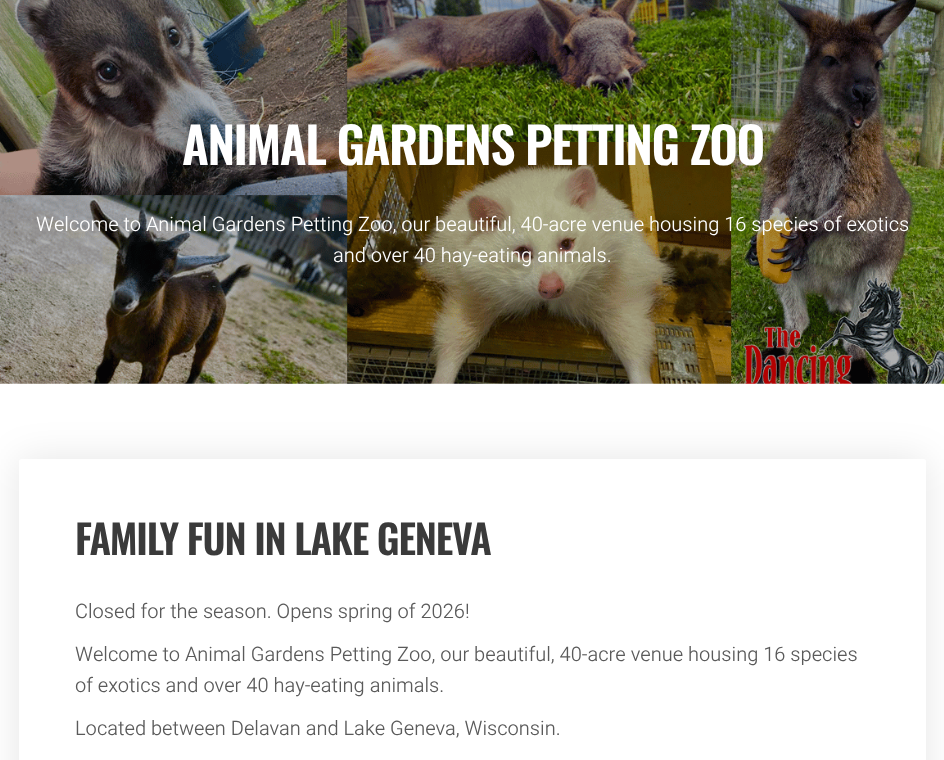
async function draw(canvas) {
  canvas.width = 944;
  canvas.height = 760;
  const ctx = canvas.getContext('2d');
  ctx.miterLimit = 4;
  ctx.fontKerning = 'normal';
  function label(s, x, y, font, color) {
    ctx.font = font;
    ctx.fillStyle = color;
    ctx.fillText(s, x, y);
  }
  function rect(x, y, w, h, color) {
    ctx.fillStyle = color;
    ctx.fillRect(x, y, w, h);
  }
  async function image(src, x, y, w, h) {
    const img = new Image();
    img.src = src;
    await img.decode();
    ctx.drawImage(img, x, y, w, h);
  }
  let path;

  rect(0, 0, 944, 760, '#fff');
  await image('assets/img1.png', 0, 0, 944, 384);
  ctx.letterSpacing = '-1.5px';
  label('ANIMAL GARDENS PETTING ZOO', 182, 165, '600 50px Oswald', '#fff');
  ctx.letterSpacing = '0px';
  label('Welcome to Animal Gardens Petting Zoo, our beautiful, 40-acre venue housing 16 species of exotics', 36, 231, '300 20px Heebo', '#fff');
  label('and over 40 hay-eating animals.', 333, 262, '300 20px Heebo', '#fff');
  ctx.save();
  path = new Path2D('M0 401H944V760H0ZM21.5 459H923.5C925 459 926 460 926 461.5V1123.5C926 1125 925 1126 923.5 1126H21.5C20 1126 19 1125 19 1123.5V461.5C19 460 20 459 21.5 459Z');
  ctx.clip(path, 'evenodd');
  ctx.fillStyle = '#0000001a';
  ctx.filter = 'blur(19px)';
  ctx.beginPath();
  ctx.roundRect(19, 459, 907, 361, 2.5);
  ctx.fill();
  ctx.filter = 'none';
  ctx.restore();
  ctx.letterSpacing = '-1.2px';
  label('FAMILY FUN IN LAKE GENEVA', 75, 555, '600 40px Oswald', '#3a3a3a');
  ctx.letterSpacing = '0px';
  label('Closed for the season. Opens spring of 2026!', 75, 618, '300 20px Heebo', '#5a5a5a');
  label('Welcome to Animal Gardens Petting Zoo, our beautiful, 40-acre venue housing 16 species', 75, 661, '300 20px Heebo', '#5a5a5a');
  label('of exotics and over 40 hay-eating animals.', 75, 692, '300 20px Heebo', '#5a5a5a');
  label('Located between Delavan and Lake Geneva, Wisconsin.', 75, 735, '300 20px Heebo', '#5a5a5a');
}

draw(document.querySelector('canvas'));
